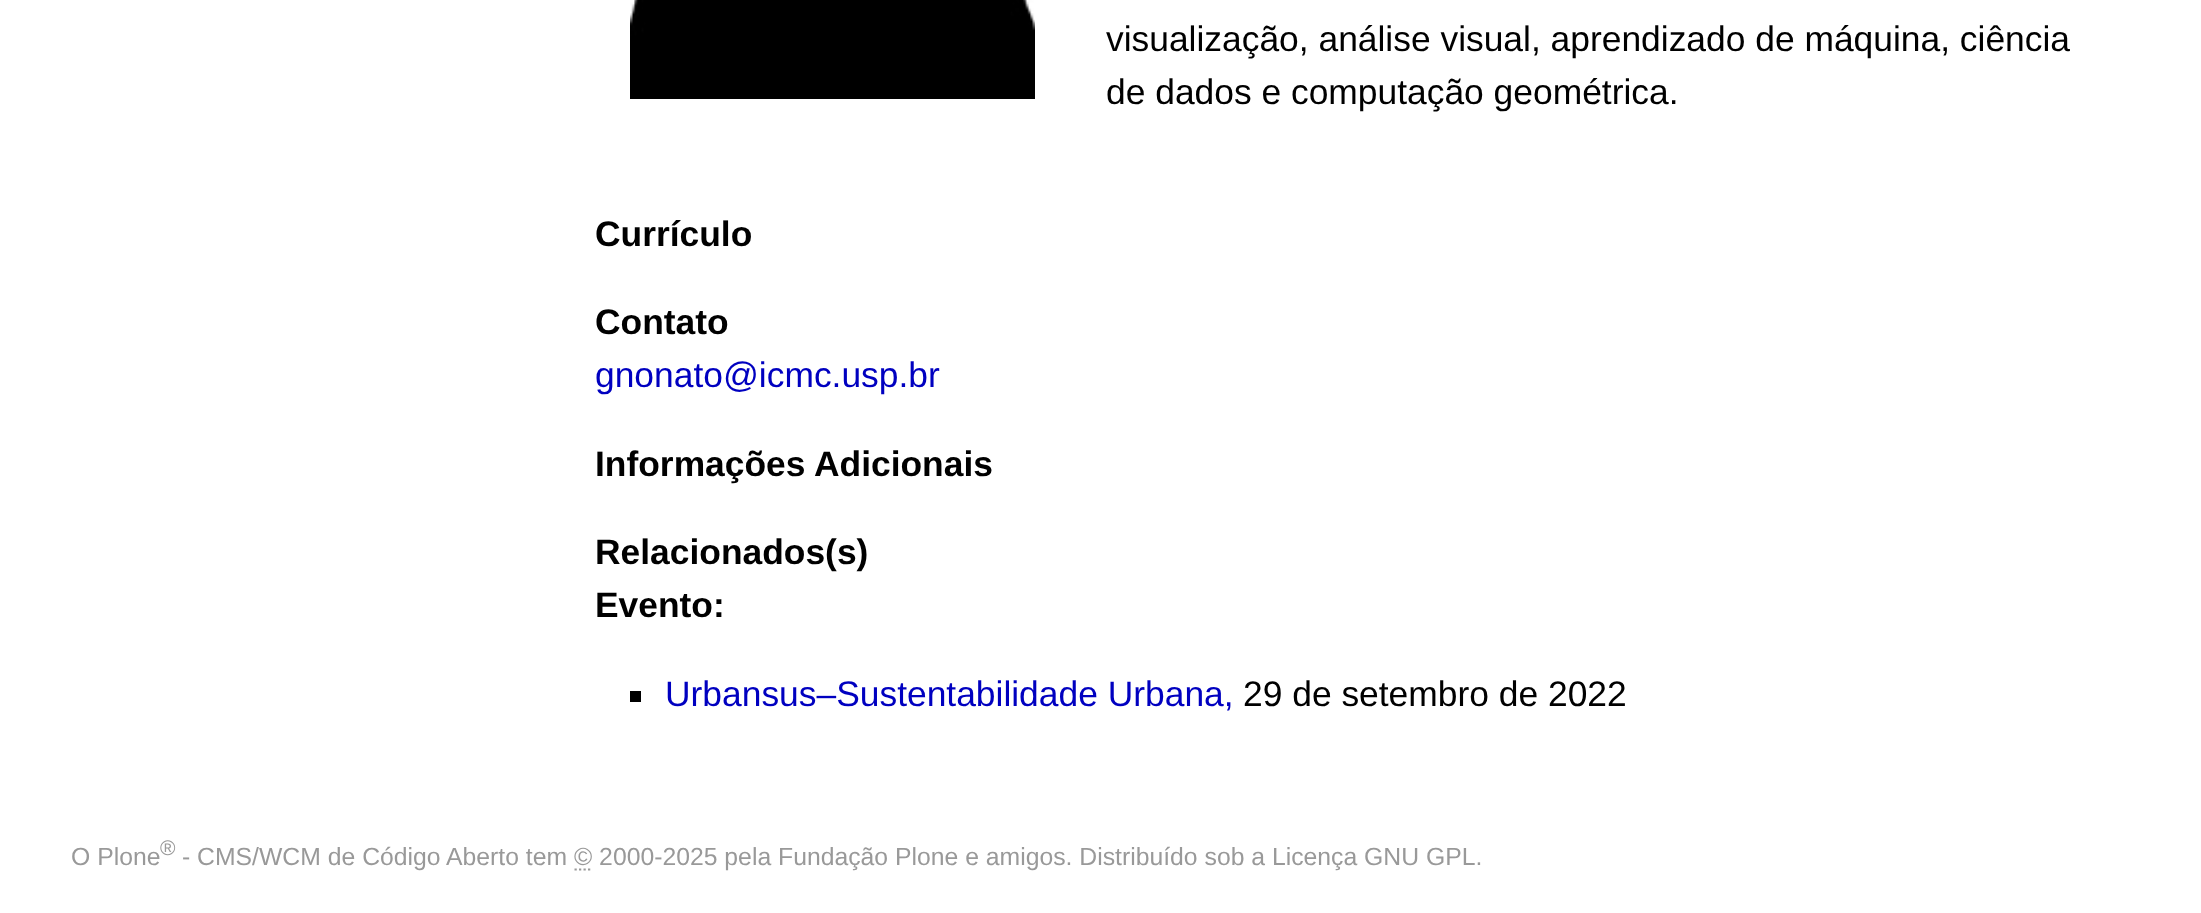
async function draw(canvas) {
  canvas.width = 2201;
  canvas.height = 913;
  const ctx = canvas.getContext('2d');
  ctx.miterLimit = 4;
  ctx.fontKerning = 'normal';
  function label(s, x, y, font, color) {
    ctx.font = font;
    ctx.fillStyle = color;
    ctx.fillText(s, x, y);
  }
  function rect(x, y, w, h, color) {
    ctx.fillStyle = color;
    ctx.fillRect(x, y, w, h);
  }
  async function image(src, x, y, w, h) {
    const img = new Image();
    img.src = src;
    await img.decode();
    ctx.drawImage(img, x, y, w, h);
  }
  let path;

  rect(0, 0, 2201, 913, '#fff');
  await image('assets/img1.png', 630, 0, 405, 99);
  label('visualização, análise visual, aprendizado de máquina, ciência', 1106, 51, '35.4px Liberation Sans', '#000');
  label('de dados e computação geométrica.', 1106, 104, '35.4px Liberation Sans', '#000');
  label('Currículo', 595, 246, 'bold 35.4px Liberation Sans', '#000');
  label('Contato', 595, 334, 'bold 35.4px Liberation Sans', '#000');
  label('gnonato@icmc.usp.br', 595, 387, '35.4px Liberation Sans', '#0000c0');
  label('Informações Adicionais', 595, 476, 'bold 35.4px Liberation Sans', '#000');
  label('Relacionados(s)', 595, 564, 'bold 35.4px Liberation Sans', '#000');
  label('Evento:', 595, 617, 'bold 35.4px Liberation Sans', '#000');
  rect(630, 691, 11, 11, '#000');
  label('Urbansus–Sustentabilidade Urbana,', 665, 706, '35.4px Liberation Sans', '#0000c0');
  label('29 de setembro de 2022', 1243, 706, '35.4px Liberation Sans', '#000');
  label('O Plone', 71, 865, '24.75px Liberation Sans', '#999');
  label('®', 160, 855, '21px Liberation Sans', '#999');
  label('- CMS/WCM de Código Aberto tem © 2000-2025 pela Fundação Plone e amigos. Distribuído sob a Licença GNU GPL.', 182, 865, '24.75px Liberation Sans', '#999');
  path = new Path2D('M574.5 869.5H592.5');
  ctx.strokeStyle = '#999';
  ctx.lineWidth = 2.2;
  ctx.setLineDash([2.25, 2.25]);
  ctx.stroke(path);
}

draw(document.querySelector('canvas'));
